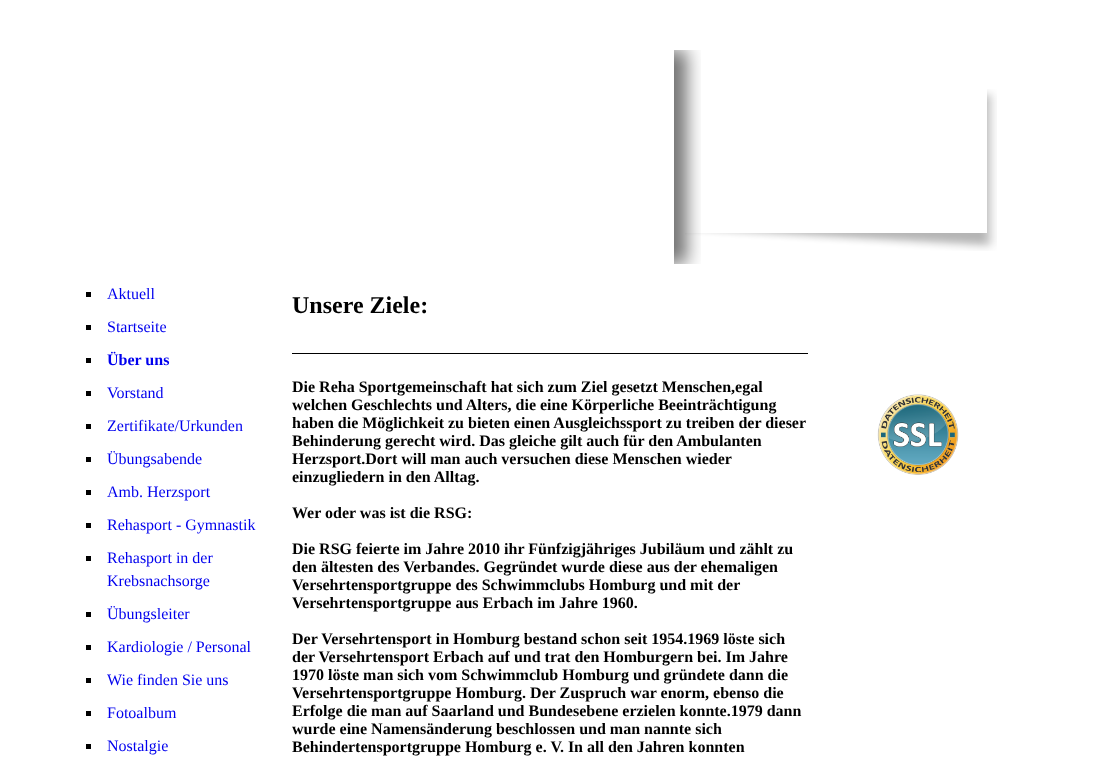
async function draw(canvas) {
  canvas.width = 1100;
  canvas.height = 761;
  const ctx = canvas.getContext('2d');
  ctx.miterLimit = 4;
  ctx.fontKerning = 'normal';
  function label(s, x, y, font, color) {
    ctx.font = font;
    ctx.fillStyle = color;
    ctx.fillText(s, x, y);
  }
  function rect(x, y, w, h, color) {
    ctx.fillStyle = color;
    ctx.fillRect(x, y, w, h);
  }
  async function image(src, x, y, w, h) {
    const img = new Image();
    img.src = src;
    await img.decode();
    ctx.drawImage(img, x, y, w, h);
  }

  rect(0, 0, 1100, 761, '#fff');
  await image('assets/img2.png', 685, 89, 312, 162);
  await image('assets/img1.png', 674, 50, 27, 214);
  rect(86, 292, 5, 5, '#000');
  label('Aktuell', 107, 299, '16px Liberation Serif', '#00e');
  rect(86, 325, 5, 5, '#000');
  label('Startseite', 107, 332, '16px Liberation Serif', '#00e');
  rect(86, 358, 5, 5, '#000');
  label('Über uns', 107, 365, 'bold 16px Liberation Serif', '#00e');
  rect(86, 391, 5, 5, '#000');
  label('Vorstand', 107, 398, '16px Liberation Serif', '#00e');
  rect(86, 424, 5, 5, '#000');
  label('Zertifikate/Urkunden', 107, 431, '16px Liberation Serif', '#00e');
  rect(86, 457, 5, 5, '#000');
  label('Übungsabende', 107, 464, '16px Liberation Serif', '#00e');
  rect(86, 490, 5, 5, '#000');
  label('Amb. Herzsport', 107, 497, '16px Liberation Serif', '#00e');
  rect(86, 523, 5, 5, '#000');
  label('Rehasport - Gymnastik', 107, 530, '16px Liberation Serif', '#00e');
  rect(86, 556, 5, 5, '#000');
  label('Rehasport in der', 107, 563, '16px Liberation Serif', '#00e');
  label('Krebsnachsorge', 107, 586, '16px Liberation Serif', '#00e');
  rect(86, 612, 5, 5, '#000');
  label('Übungsleiter', 107, 619, '16px Liberation Serif', '#00e');
  rect(86, 645, 5, 5, '#000');
  label('Kardiologie / Personal', 107, 652, '16px Liberation Serif', '#00e');
  rect(86, 678, 5, 5, '#000');
  label('Wie finden Sie uns', 107, 685, '16px Liberation Serif', '#00e');
  rect(86, 711, 5, 5, '#000');
  label('Fotoalbum', 107, 718, '16px Liberation Serif', '#00e');
  rect(86, 744, 5, 5, '#000');
  label('Nostalgie', 107, 751, '16px Liberation Serif', '#00e');
  label('Unsere Ziele:', 292, 313, 'bold 24px Liberation Serif', '#000');
  rect(292, 353, 516, 1, '#000');
  label('Die Reha Sportgemeinschaft hat sich zum Ziel gesetzt Menschen,egal', 292, 392, 'bold 16px Liberation Serif', '#000');
  label('welchen Geschlechts und Alters, die eine Körperliche Beeinträchtigung', 292, 410, 'bold 16px Liberation Serif', '#000');
  label('haben die Möglichkeit zu bieten einen Ausgleichssport zu treiben der dieser', 292, 428, 'bold 16px Liberation Serif', '#000');
  label('Behinderung gerecht wird. Das gleiche gilt auch für den Ambulanten', 292, 446, 'bold 16px Liberation Serif', '#000');
  label('Herzsport.Dort will man auch versuchen diese Menschen wieder', 292, 464, 'bold 16px Liberation Serif', '#000');
  label('einzugliedern in den Alltag.', 292, 482, 'bold 16px Liberation Serif', '#000');
  label('Wer oder was ist die RSG:', 292, 518, 'bold 16px Liberation Serif', '#000');
  label('Die RSG feierte im Jahre 2010 ihr Fünfzigjähriges Jubiläum und zählt zu', 292, 554, 'bold 16px Liberation Serif', '#000');
  label('den ältesten des Verbandes. Gegründet wurde diese aus der ehemaligen', 292, 572, 'bold 16px Liberation Serif', '#000');
  label('Versehrtensportgruppe des Schwimmclubs Homburg und mit der', 292, 590, 'bold 16px Liberation Serif', '#000');
  label('Versehrtensportgruppe aus Erbach im Jahre 1960.', 292, 608, 'bold 16px Liberation Serif', '#000');
  label('Der Versehrtensport in Homburg bestand schon seit 1954.1969 löste sich', 292, 644, 'bold 16px Liberation Serif', '#000');
  label('der Versehrtensport Erbach auf und trat den Homburgern bei. Im Jahre', 292, 662, 'bold 16px Liberation Serif', '#000');
  label('1970 löste man sich vom Schwimmclub Homburg und gründete dann die', 292, 680, 'bold 16px Liberation Serif', '#000');
  label('Versehrtensportgruppe Homburg. Der Zuspruch war enorm, ebenso die', 292, 698, 'bold 16px Liberation Serif', '#000');
  label('Erfolge die man auf Saarland und Bundesebene erzielen konnte.1979 dann', 292, 716, 'bold 16px Liberation Serif', '#000');
  label('wurde eine Namensänderung beschlossen und man nannte sich', 292, 734, 'bold 16px Liberation Serif', '#000');
  label('Behindertensportgruppe Homburg e. V. In all den Jahren konnten', 292, 752, 'bold 16px Liberation Serif', '#000');
  await image('assets/img3.png', 877, 394, 82, 81);
}

draw(document.querySelector('canvas'));
